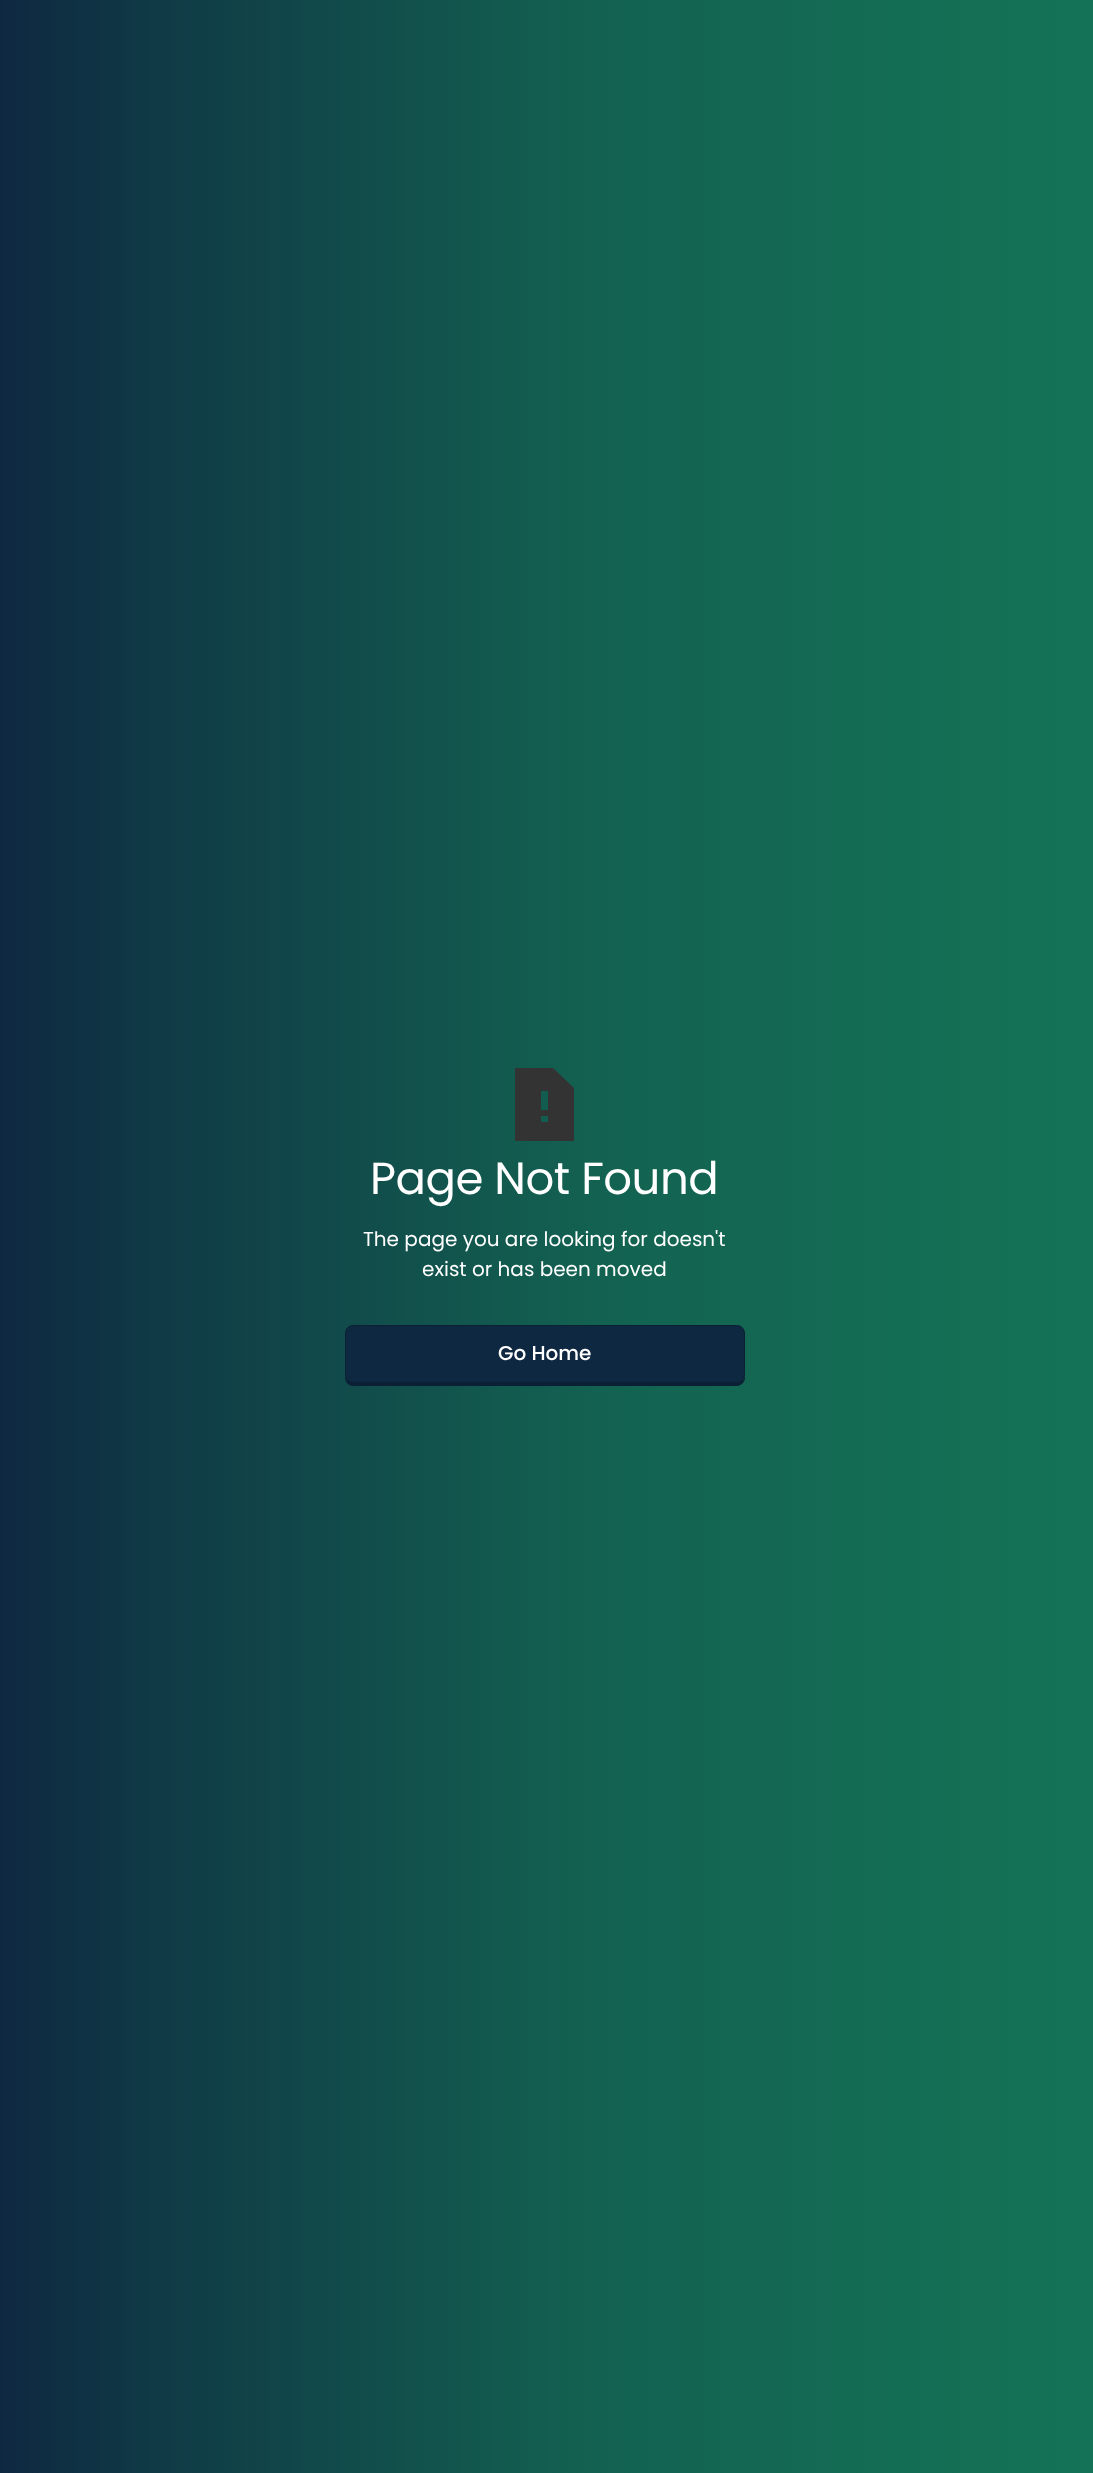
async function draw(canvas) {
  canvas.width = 1093;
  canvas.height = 2473;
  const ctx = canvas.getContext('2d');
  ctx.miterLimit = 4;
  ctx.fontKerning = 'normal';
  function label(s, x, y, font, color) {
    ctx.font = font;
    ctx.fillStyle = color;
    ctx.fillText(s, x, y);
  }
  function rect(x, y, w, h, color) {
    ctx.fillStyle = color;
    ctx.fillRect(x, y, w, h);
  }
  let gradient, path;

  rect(0, 0, 1093, 2473, '#fff');
  gradient = ctx.createLinearGradient(0, 1237, 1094, 1237);
  gradient.addColorStop(0, '#0e2841');
  gradient.addColorStop(0.15, '#103b46');
  gradient.addColorStop(0.55, '#136251');
  gradient.addColorStop(1, '#147356');
  ctx.fillStyle = gradient;
  ctx.fillRect(0, 0, 1093, 2473);
  ctx.fillStyle = '#333';
  path = new Path2D('M515 1068H553L574 1088V1141H515ZM541 1091H548V1110H541ZM541 1116H548V1122H541Z');
  ctx.fill(path, 'evenodd');
  ctx.letterSpacing = '-0.5px';
  label('Page Not Found', 370, 1194, '45px Poppins', '#fff');
  ctx.letterSpacing = '0px';
  label('The page you are looking for doesn\'t', 363, 1246, '20px Poppins', '#fff');
  label('exist or has been moved', 422, 1276, '20px Poppins', '#fff');
  ctx.fillStyle = '#0b2034';
  path = new Path2D('M345 1375V1378C345 1382 349 1386 353 1386H737C741 1386 745 1382 745 1378V1375C745 1379 742 1382 738 1382H352C348 1382 345 1379 345 1375Z');
  ctx.fill(path);
  ctx.fillStyle = '#0e2841';
  ctx.beginPath();
  ctx.roundRect(345.5, 1325.5, 399, 57, 7.5);
  ctx.fill();
  ctx.strokeStyle = '#0b2034';
  ctx.stroke();
  label('Go Home', 498, 1360, '500 20px Poppins', '#fff');
}

draw(document.querySelector('canvas'));
